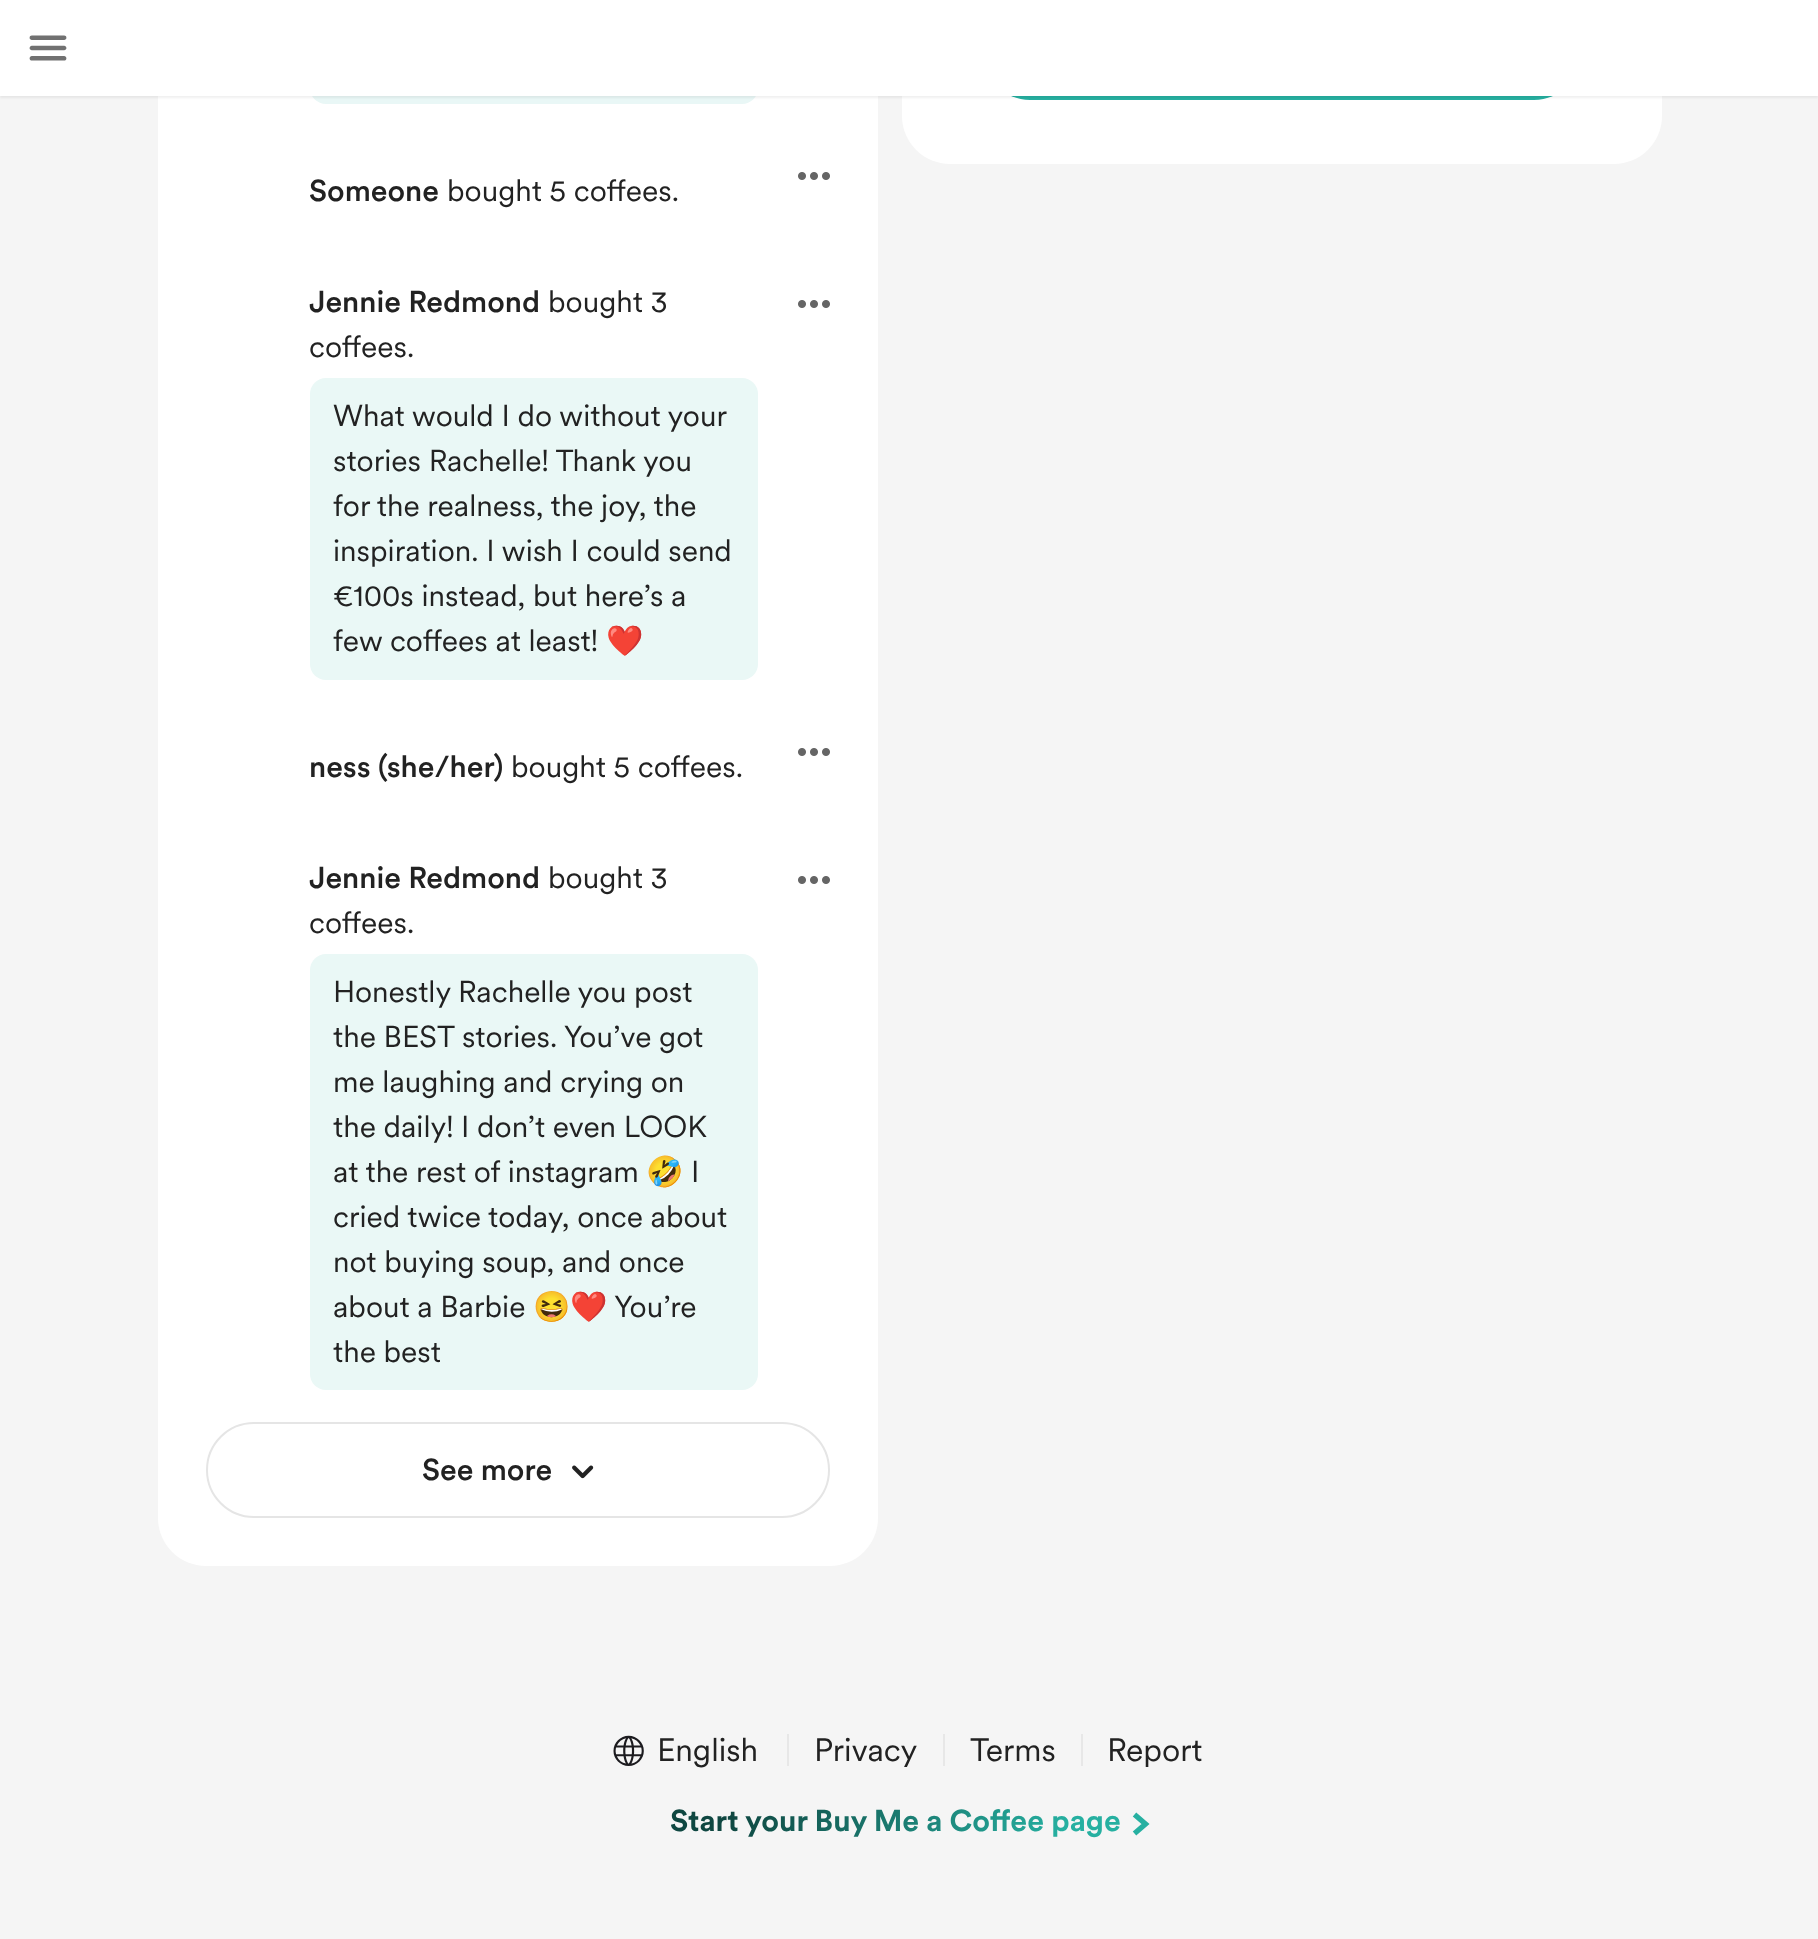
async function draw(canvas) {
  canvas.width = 1818;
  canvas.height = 1939;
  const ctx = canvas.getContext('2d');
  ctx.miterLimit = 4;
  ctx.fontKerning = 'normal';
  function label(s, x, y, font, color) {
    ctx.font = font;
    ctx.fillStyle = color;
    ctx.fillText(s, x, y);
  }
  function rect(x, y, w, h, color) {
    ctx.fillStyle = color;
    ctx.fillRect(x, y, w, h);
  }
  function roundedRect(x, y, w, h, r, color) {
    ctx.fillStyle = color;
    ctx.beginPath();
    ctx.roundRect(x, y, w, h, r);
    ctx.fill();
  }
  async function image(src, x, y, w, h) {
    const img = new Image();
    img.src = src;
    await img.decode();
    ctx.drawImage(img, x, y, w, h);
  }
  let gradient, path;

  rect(0, 0, 1818, 1939, '#f5f5f5');
  roundedRect(902, -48, 760, 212, 48, '#fff');
  roundedRect(982, 4, 600, 96, 48, '#26b0a1');
  roundedRect(158, -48, 720, 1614, 48, '#fff');
  roundedRect(310, -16, 448, 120, 16, '#e9f7f6');
  ctx.fillStyle = '#0000000f';
  ctx.filter = 'blur(1px)';
  ctx.beginPath();
  ctx.rect(0, 2, 1818, 96);
  ctx.fill();
  ctx.filter = 'none';
  rect(0, 0, 1818, 96, '#fff');
  await image('assets/img1.png', 29, 35, 38, 26);
  await image('assets/img2.png', 798, 172, 32, 8);
  label('Someone', 309, 201, '500 30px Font', '#222');
  label('bought 5 coffees.', 447, 201, '30px Font', '#222');
  label('Jennie Redmond', 309, 312, '500 30px Font', '#222');
  label('bought 3', 548, 312, '30px Font', '#222');
  label('coffees.', 309, 357, '30px Font', '#222');
  roundedRect(310, 378, 448, 302, 16, '#eaf8f6');
  label('What would I do without your', 333, 426, '30px Font', '#222');
  label('stories Rachelle! Thank you', 333, 471, '30px Font', '#222');
  label('for the realness, the joy, the', 333, 516, '30px Font', '#222');
  label('inspiration. I wish I could send', 333, 561, '30px Font', '#222');
  label('€100s instead, but here’s a', 333, 606, '30px Font', '#222');
  label('few coffees at least!', 333, 651, '30px Font', '#222');
  label('❤️', 606, 651, '30px Noto Color Emoji', '#222');
  await image('assets/img2.png', 798, 300, 32, 8);
  label('ness (she/her)', 309, 777, '500 30px Font', '#222');
  label('bought 5 coffees.', 511, 777, '30px Font', '#222');
  await image('assets/img2.png', 798, 748, 32, 8);
  label('Jennie Redmond', 309, 888, '500 30px Font', '#222');
  label('bought 3', 548, 888, '30px Font', '#222');
  label('coffees.', 309, 933, '30px Font', '#222');
  roundedRect(310, 954, 448, 436, 16, '#eaf8f6');
  label('Honestly Rachelle you post', 333, 1002, '30px Font', '#222');
  label('the BEST stories. You’ve got', 333, 1047, '30px Font', '#222');
  label('me laughing and crying on', 333, 1092, '30px Font', '#222');
  label('the daily! I don’t even LOOK', 333, 1137, '30px Font', '#222');
  label('at the rest of instagram', 333, 1182, '30px Font', '#222');
  label('🤣', 646, 1182, '30px Noto Color Emoji', '#222');
  label('I', 691, 1182, '30px Font', '#222');
  label('cried twice today, once about', 333, 1227, '30px Font', '#222');
  label('not buying soup, and once', 333, 1272, '30px Font', '#222');
  label('about a Barbie', 333, 1317, '30px Font', '#222');
  label('😆❤️', 533, 1317, '30px Noto Color Emoji', '#222');
  label('You’re', 614, 1317, '30px Font', '#222');
  label('the best', 333, 1362, '30px Font', '#222');
  await image('assets/img2.png', 798, 876, 32, 8);
  ctx.beginPath();
  ctx.roundRect(207, 1423, 622, 94, 47);
  ctx.strokeStyle = '#e5e5e5';
  ctx.lineWidth = 2;
  ctx.stroke();
  label('See more', 422, 1480, '500 30px Font', '#222');
  await image('assets/img3.png', 572, 1465, 22, 14);
  await image('assets/img4.png', 613, 1735, 31, 31);
  label('English', 657, 1761, '32px Font', '#222');
  rect(787, 1734, 2, 32, '#e7e7e7');
  label('Privacy', 814, 1761, '32px Font', '#222');
  rect(943, 1734, 2, 32, '#e7e7e7');
  label('Terms', 970, 1761, '32px Font', '#222');
  rect(1081, 1734, 2, 32, '#e7e7e7');
  label('Report', 1107, 1761, '32px Font', '#222');
  ctx.font = 'bold 30px Font';
  gradient = ctx.createLinearGradient(698, 1731, 1120, 1911);
  gradient.addColorStop(0.14, '#0f4741');
  gradient.addColorStop(0.82, '#26b0a1');
  ctx.fillStyle = gradient;
  ctx.fillText('Start your Buy Me a Coffee page', 670, 1831);
  path = new Path2D('M1134.5 1814.5L1145.5 1824L1134.5 1833.5');
  ctx.strokeStyle = '#26b0a1';
  ctx.lineWidth = 5.3;
  ctx.stroke(path);
}

draw(document.querySelector('canvas'));
